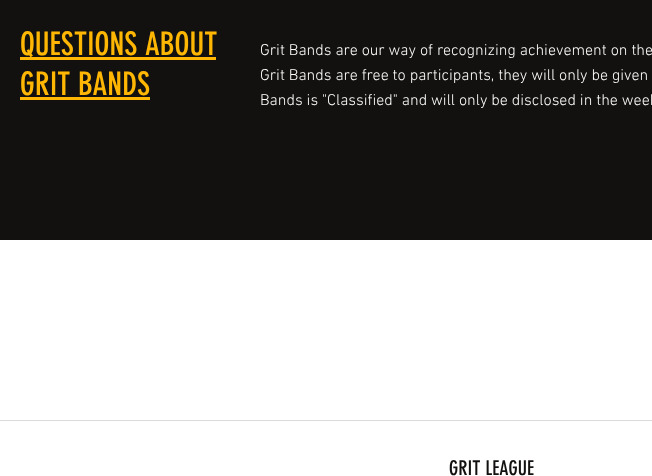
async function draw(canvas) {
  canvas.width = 652;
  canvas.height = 476;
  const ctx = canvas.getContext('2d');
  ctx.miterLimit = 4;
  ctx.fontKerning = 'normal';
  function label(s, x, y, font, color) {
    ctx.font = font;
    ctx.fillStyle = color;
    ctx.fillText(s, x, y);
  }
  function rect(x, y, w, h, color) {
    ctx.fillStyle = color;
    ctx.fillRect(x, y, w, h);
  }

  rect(0, 0, 652, 476, '#fff');
  rect(0, 0, 652, 240, '#12110f');
  rect(20, 57, 196, 3, '#ffb703');
  label('QUESTIONS ABOUT', 20, 55, '32px "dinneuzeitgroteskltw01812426"', '#ffb703');
  label('GRIT BANDS', 20, 95, '32px "dinneuzeitgroteskltw01812426"', '#ffb703');
  rect(20, 97, 130, 3, '#ffb703');
  label('Grit Bands are our way of recognizing achievement on the', 260, 55, '300 16px "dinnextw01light"', '#fff');
  label('Grit Bands are free to participants, they will only be given', 260, 80, '300 16px "dinnextw01light"', '#fff');
  label('Bands is "Classified" and will only be disclosed in the week', 260, 105, '300 16px "dinnextw01light"', '#fff');
  rect(0, 420, 652, 1, '#dbdbdb');
  label('GRIT LEAGUE', 449, 475, '20px "dinneuzeitgroteskltw01812426"', '#12110f');
}

draw(document.querySelector('canvas'));
